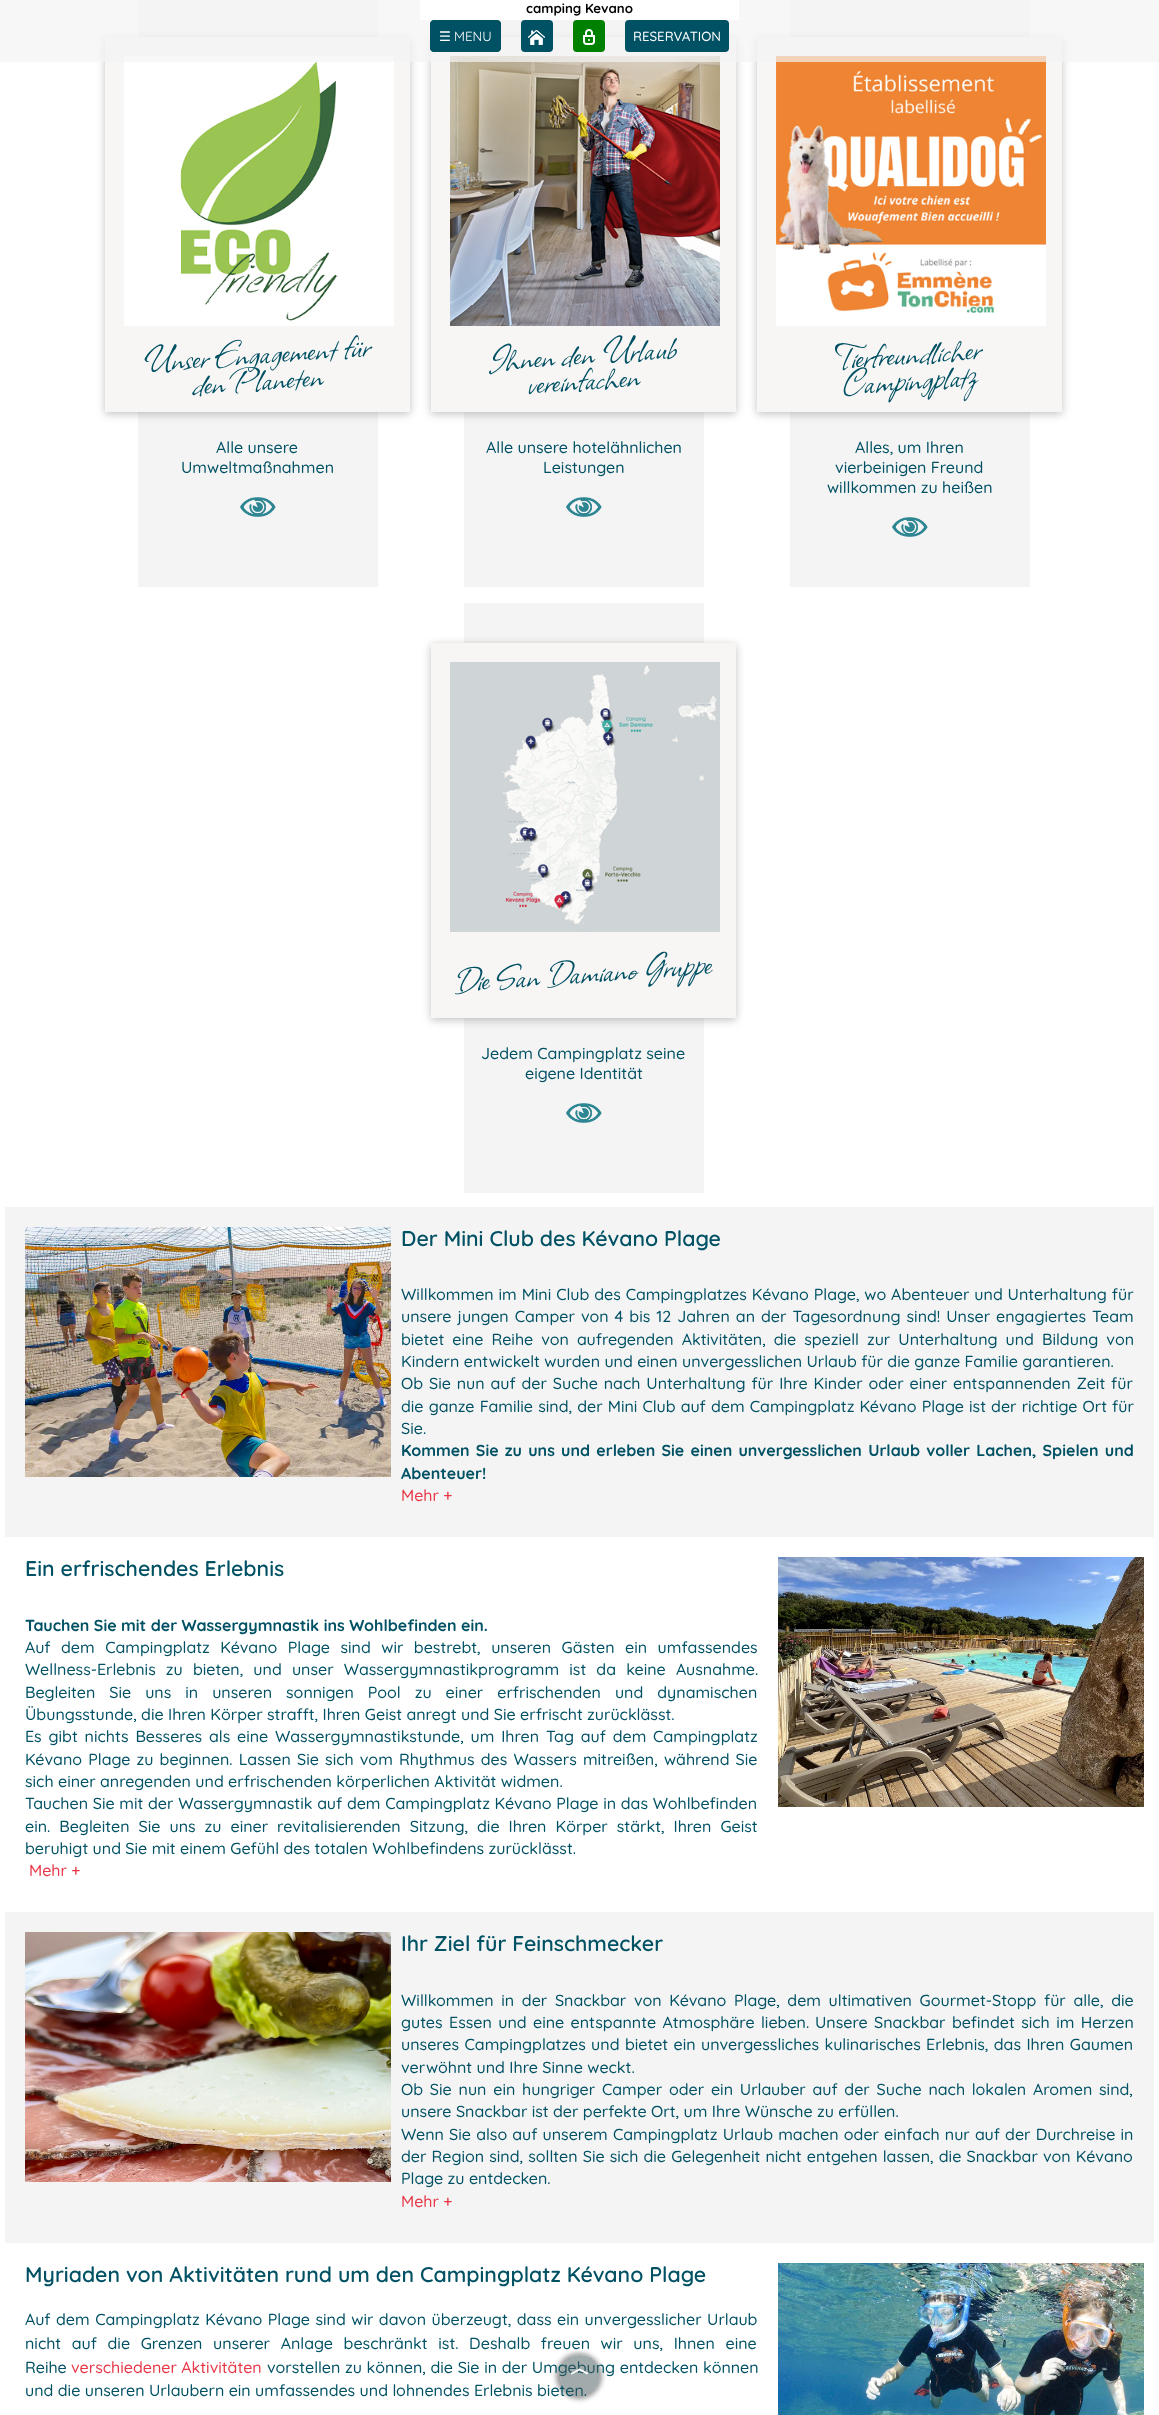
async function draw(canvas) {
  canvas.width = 1159;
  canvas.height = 2415;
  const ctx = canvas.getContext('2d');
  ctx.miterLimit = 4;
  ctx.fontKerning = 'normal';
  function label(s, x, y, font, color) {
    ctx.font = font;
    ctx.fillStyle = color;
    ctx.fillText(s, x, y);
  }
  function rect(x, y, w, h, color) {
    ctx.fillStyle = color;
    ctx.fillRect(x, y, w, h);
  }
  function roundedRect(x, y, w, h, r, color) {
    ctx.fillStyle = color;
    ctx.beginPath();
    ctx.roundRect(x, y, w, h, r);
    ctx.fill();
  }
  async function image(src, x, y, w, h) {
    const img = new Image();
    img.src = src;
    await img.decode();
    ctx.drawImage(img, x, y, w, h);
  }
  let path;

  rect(0, 0, 1159, 2415, '#fff');
  rect(138, 0, 240, 587, '#f4f4f4');
  ctx.fillStyle = '#63636366';
  ctx.filter = 'blur(4px)';
  ctx.beginPath();
  ctx.rect(105, 39, 305, 375);
  ctx.fill();
  ctx.filter = 'none';
  rect(105, 37, 305, 375, '#f8f6f5');
  await image('assets/img3.png', 124, 56, 270, 270);
  rect(464, 20, 240, 567, '#f4f4f4');
  ctx.fillStyle = '#63636366';
  ctx.filter = 'blur(4px)';
  ctx.beginPath();
  ctx.rect(431, 39, 305, 375);
  ctx.fill();
  ctx.filter = 'none';
  rect(431, 37, 305, 375, '#f8f6f5');
  await image('assets/img5.png', 450, 56, 270, 270);
  rect(790, 0, 240, 587, '#f4f4f4');
  ctx.fillStyle = '#63636366';
  ctx.filter = 'blur(4px)';
  ctx.beginPath();
  ctx.rect(757, 39, 305, 375);
  ctx.fill();
  ctx.filter = 'none';
  rect(757, 37, 305, 375, '#f8f6f5');
  await image('assets/img7.png', 776, 56, 270, 270);
  rect(0, 0, 1159, 62, '#f4f4f4b3');
  rect(420, 0, 319, 20, '#fff');
  label('camping Kevano', 526, 13, 'bold 13.25px Quicksand', '#000');
  ctx.beginPath();
  ctx.roundRect(430.5, 20.5, 70, 31, 3.5);
  ctx.strokeStyle = '#005164';
  ctx.stroke();
  ctx.fillStyle = '#005164';
  ctx.beginPath();
  ctx.roundRect(430.5, 20.5, 70, 31, 3.5);
  ctx.fill();
  ctx.stroke();
  roundedRect(521, 20, 32, 32, 4, '#005164');
  await image('assets/img1.png', 528, 30, 17, 15);
  roundedRect(573, 20, 32, 32, 4, '#008000');
  await image('assets/img2.png', 583, 29, 12, 16);
  label('☰', 439, 41, '13.25px DejaVu Sans', '#fff');
  label('MENU', 454, 41, '13.25px Quicksand', '#fff');
  roundedRect(625, 20, 104, 32, 4, '#005164');
  label('RESERVATION', 633, 41, '500 13.25px Quicksand', '#fff');
  ctx.save();
  path = new Path2D('M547 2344H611V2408H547ZM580 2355C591 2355 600 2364 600 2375C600 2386 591 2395 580 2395C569 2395 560 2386 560 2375C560 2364 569 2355 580 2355Z');
  ctx.clip(path, 'evenodd');
  ctx.fillStyle = '#00000066';
  ctx.filter = 'blur(2.5px)';
  ctx.beginPath();
  ctx.roundRect(556, 2353, 46, 46, 23);
  ctx.fill();
  ctx.filter = 'none';
  ctx.restore();
  ctx.wordSpacing = '0.25px';
  label('vorstellen zu können, die Sie in der Umgebung entdecken können', 267, 2373, '500 16px Quicksand', '#005164');
  ctx.wordSpacing = '0px';
  label('und die unseren Urlaubern ein umfassendes und lohnendes Erlebnis bieten.', 25, 2396, '500 16px Quicksand', '#005164');
  ctx.fillStyle = '#43575a80';
  ctx.beginPath();
  ctx.arc(580, 2375, 20, 0, 2 * Math.PI);
  ctx.fill();
  label('︿', 570, 2375, 'bold 20px WenQuanYi Zen Hei', '#fff');
  ctx.font = '40px Allison';
  ctx.fillStyle = '#005164';
  ctx.save();
  ctx.translate(143, 371);
  ctx.rotate(-4 * Math.PI / 180);
  ctx.fillText('Unser Engagement für', 0, 0);
  ctx.restore();
  ctx.save();
  ctx.translate(193, 394);
  ctx.rotate(-4 * Math.PI / 180);
  ctx.fillText('den Planeten', 0, 0);
  ctx.restore();
  label('Alle unsere', 216, 453, '500 16px Quicksand', '#005164');
  label('Umweltmaßnahmen', 181, 473, '500 16px Quicksand', '#005164');
  await image('assets/img4.png', 240, 497, 36, 20);
  ctx.font = '40px Allison';
  ctx.save();
  ctx.translate(489, 370);
  ctx.rotate(-4 * Math.PI / 180);
  ctx.fillText('Ihnen den Urlaub', 0, 0);
  ctx.restore();
  ctx.save();
  ctx.translate(528, 393);
  ctx.rotate(-4 * Math.PI / 180);
  ctx.fillText('vereinfachen', 0, 0);
  ctx.restore();
  label('Alle unsere hotelähnlichen', 486, 453, '500 16px Quicksand', '#005164');
  label('Leistungen', 543, 473, '500 16px Quicksand', '#005164');
  await image('assets/img6.png', 566, 497, 36, 20);
  ctx.font = '40px Allison';
  ctx.save();
  ctx.translate(837, 368);
  ctx.rotate(-4 * Math.PI / 180);
  ctx.fillText('Tierfreundlicher', 0, 0);
  ctx.restore();
  ctx.save();
  ctx.translate(843, 394);
  ctx.rotate(-4 * Math.PI / 180);
  ctx.fillText('Campingplatz', 0, 0);
  ctx.restore();
  label('Alles, um Ihren', 855, 453, '500 16px Quicksand', '#005164');
  label('vierbeinigen Freund', 835, 473, '500 16px Quicksand', '#005164');
  label('willkommen zu heißen', 827, 493, '500 16px Quicksand', '#005164');
  await image('assets/img6.png', 892, 517, 36, 20);
  rect(464, 603, 240, 590, '#f4f4f4');
  ctx.fillStyle = '#63636366';
  ctx.filter = 'blur(4px)';
  ctx.beginPath();
  ctx.rect(431, 645, 305, 375);
  ctx.fill();
  ctx.filter = 'none';
  rect(431, 643, 305, 375, '#f8f6f5');
  await image('assets/img8.png', 450, 662, 270, 270);
  ctx.font = '40px Allison';
  ctx.fillStyle = '#005164';
  ctx.save();
  ctx.translate(455, 991);
  ctx.rotate(-4 * Math.PI / 180);
  ctx.fillText('Die San Damiano Gruppe', 0, 0);
  ctx.restore();
  label('Jedem Campingplatz seine', 481, 1059, '500 16px Quicksand', '#005164');
  label('eigene Identität', 525, 1079, '500 16px Quicksand', '#005164');
  await image('assets/img6.png', 566, 1103, 36, 20);
  rect(5, 1207, 1149, 330, '#f4f4f4');
  await image('assets/img9.png', 25, 1227, 366, 250);
  label('Der Mini Club des Kévano Plage', 401, 1246, '600 21.3px Quicksand', '#005164');
  ctx.wordSpacing = '0.5px';
  label('Willkommen im Mini Club des Campingplatzes Kévano Plage, wo Abenteuer und Unterhaltung für', 401, 1300, '500 16px Quicksand', '#005164');
  ctx.wordSpacing = '1.6px';
  label('unsere jungen Camper von 4 bis 12 Jahren an der Tagesordnung sind! Unser engagiertes Team', 401, 1322, '500 16px Quicksand', '#005164');
  ctx.wordSpacing = '3.6px';
  label('bietet eine Reihe von aufregenden Aktivitäten, die speziell zur Unterhaltung und Bildung von', 401, 1345, '500 16px Quicksand', '#005164');
  ctx.wordSpacing = '0px';
  label('Kindern entwickelt wurden und einen unvergesslichen Urlaub für die ganze Familie garantieren.', 401, 1367, '500 16px Quicksand', '#005164');
  ctx.wordSpacing = '1.5px';
  label('Ob Sie nun auf der Suche nach Unterhaltung für Ihre Kinder oder einer entspannenden Zeit für', 401, 1389, '500 16px Quicksand', '#005164');
  ctx.wordSpacing = '0.75px';
  label('die ganze Familie sind, der Mini Club auf dem Campingplatz Kévano Plage ist der richtige Ort für', 401, 1412, '500 16px Quicksand', '#005164');
  ctx.wordSpacing = '0px';
  label('Sie.', 401, 1434, '500 16px Quicksand', '#005164');
  ctx.wordSpacing = '1.75px';
  label('Kommen Sie zu uns und erleben Sie einen unvergesslichen Urlaub voller Lachen, Spielen und', 401, 1456, 'bold 16px Quicksand', '#005164');
  ctx.wordSpacing = '0px';
  label('Abenteuer!', 401, 1479, 'bold 16px Quicksand', '#005164');
  label('Mehr +', 401, 1501, '500 16px Quicksand', '#e73747');
  label('Ein erfrischendes Erlebnis', 25, 1576, '600 21.3px Quicksand', '#005164');
  label('Tauchen Sie mit der Wassergymnastik ins Wohlbefinden ein.', 25, 1631, 'bold 16px Quicksand', '#005164');
  ctx.wordSpacing = '6.1px';
  label('Auf dem Campingplatz Kévano Plage sind wir bestrebt, unseren Gästen ein umfassendes', 25, 1653, '500 16px Quicksand', '#005164');
  ctx.wordSpacing = '5.75px';
  label('Wellness-Erlebnis zu bieten, und unser Wassergymnastikprogramm ist da keine Ausnahme.', 25, 1675, '500 16px Quicksand', '#005164');
  ctx.wordSpacing = '9.6px';
  label('Begleiten Sie uns in unseren sonnigen Pool zu einer erfrischenden und dynamischen', 25, 1698, '500 16px Quicksand', '#005164');
  ctx.wordSpacing = '0px';
  label('Übungsstunde, die Ihren Körper strafft, Ihren Geist anregt und Sie erfrischt zurücklässt.', 25, 1720, '500 16px Quicksand', '#005164');
  ctx.wordSpacing = '2.4px';
  label('Es gibt nichts Besseres als eine Wassergymnastikstunde, um Ihren Tag auf dem Campingplatz', 25, 1742, '500 16px Quicksand', '#005164');
  ctx.wordSpacing = '1.75px';
  label('Kévano Plage zu beginnen. Lassen Sie sich vom Rhythmus des Wassers mitreißen, während Sie', 25, 1765, '500 16px Quicksand', '#005164');
  ctx.wordSpacing = '0px';
  label('sich einer anregenden und erfrischenden körperlichen Aktivität widmen.', 25, 1787, '500 16px Quicksand', '#005164');
  ctx.wordSpacing = '0.3px';
  label('Tauchen Sie mit der Wassergymnastik auf dem Campingplatz Kévano Plage in das Wohlbefinden', 25, 1809, '500 16px Quicksand', '#005164');
  ctx.wordSpacing = '4.6px';
  label('ein. Begleiten Sie uns zu einer revitalisierenden Sitzung, die Ihren Körper stärkt, Ihren Geist', 25, 1832, '500 16px Quicksand', '#005164');
  ctx.wordSpacing = '0px';
  label('beruhigt und Sie mit einem Gefühl des totalen Wohlbefindens zurücklässt.', 25, 1854, '500 16px Quicksand', '#005164');
  label('Mehr +', 29, 1876, '500 16px Quicksand', '#e73747');
  await image('assets/img10.png', 778, 1557, 366, 250);
  rect(5, 1912, 1149, 331, '#f4f4f4');
  await image('assets/img11.png', 25, 1932, 366, 250);
  label('Ihr Ziel für Feinschmecker', 401, 1951, '600 21.3px Quicksand', '#005164');
  ctx.wordSpacing = '3.25px';
  label('Willkommen in der Snackbar von Kévano Plage, dem ultimativen Gourmet-Stopp für alle, die', 401, 2006, '500 16px Quicksand', '#005164');
  ctx.wordSpacing = '2px';
  label('gutes Essen und eine entspannte Atmosphäre lieben.', 401, 2028, '500 16px Quicksand', '#005164');
  label('Unsere Snackbar befindet sich im Herzen', 815, 2028, '500 16px Quicksand', '#005164');
  ctx.wordSpacing = '1px';
  label('unseres Campingplatzes und bietet ein unvergessliches kulinarisches Erlebnis, das Ihren Gaumen', 401, 2050, '500 16px Quicksand', '#005164');
  ctx.wordSpacing = '0px';
  label('verwöhnt und Ihre Sinne weckt.', 401, 2073, '500 16px Quicksand', '#005164');
  ctx.wordSpacing = '2.4px';
  label('Ob Sie nun ein hungriger Camper oder ein Urlauber auf der Suche nach lokalen Aromen sind,', 401, 2095, '500 16px Quicksand', '#005164');
  ctx.wordSpacing = '0px';
  label('unsere Snackbar ist der perfekte Ort, um Ihre Wünsche zu erfüllen.', 401, 2117, '500 16px Quicksand', '#005164');
  ctx.wordSpacing = '0.75px';
  label('Wenn Sie also auf unserem Campingplatz Urlaub machen oder einfach nur auf der Durchreise in', 401, 2140, '500 16px Quicksand', '#005164');
  label('der Region sind, sollten Sie sich die Gelegenheit nicht entgehen lassen, die Snackbar von Kévano', 401, 2162, '500 16px Quicksand', '#005164');
  ctx.wordSpacing = '0px';
  label('Plage zu entdecken.', 401, 2184, '500 16px Quicksand', '#005164');
  label('Mehr +', 401, 2207, '500 16px Quicksand', '#e73747');
  label('Myriaden von Aktivitäten rund um den Campingplatz Kévano Plage', 25, 2282, '600 21.3px Quicksand', '#005164');
  ctx.wordSpacing = '1.1px';
  label('Auf dem Campingplatz Kévano Plage sind wir davon überzeugt, dass ein unvergesslicher Urlaub', 25, 2325, '500 16px Quicksand', '#005164');
  ctx.wordSpacing = '6.25px';
  label('nicht auf die Grenzen unserer Anlage beschränkt ist. Deshalb freuen wir uns, Ihnen eine', 25, 2349, '500 16px Quicksand', '#005164');
  ctx.wordSpacing = '0px';
  label('Reihe', 25, 2373, '500 16px Quicksand', '#005164');
  label('verschiedener Aktivitäten', 71, 2373, '500 16px Quicksand', '#e73747');
  await image('assets/img12.png', 778, 2263, 366, 152);
}

draw(document.querySelector('canvas'));
